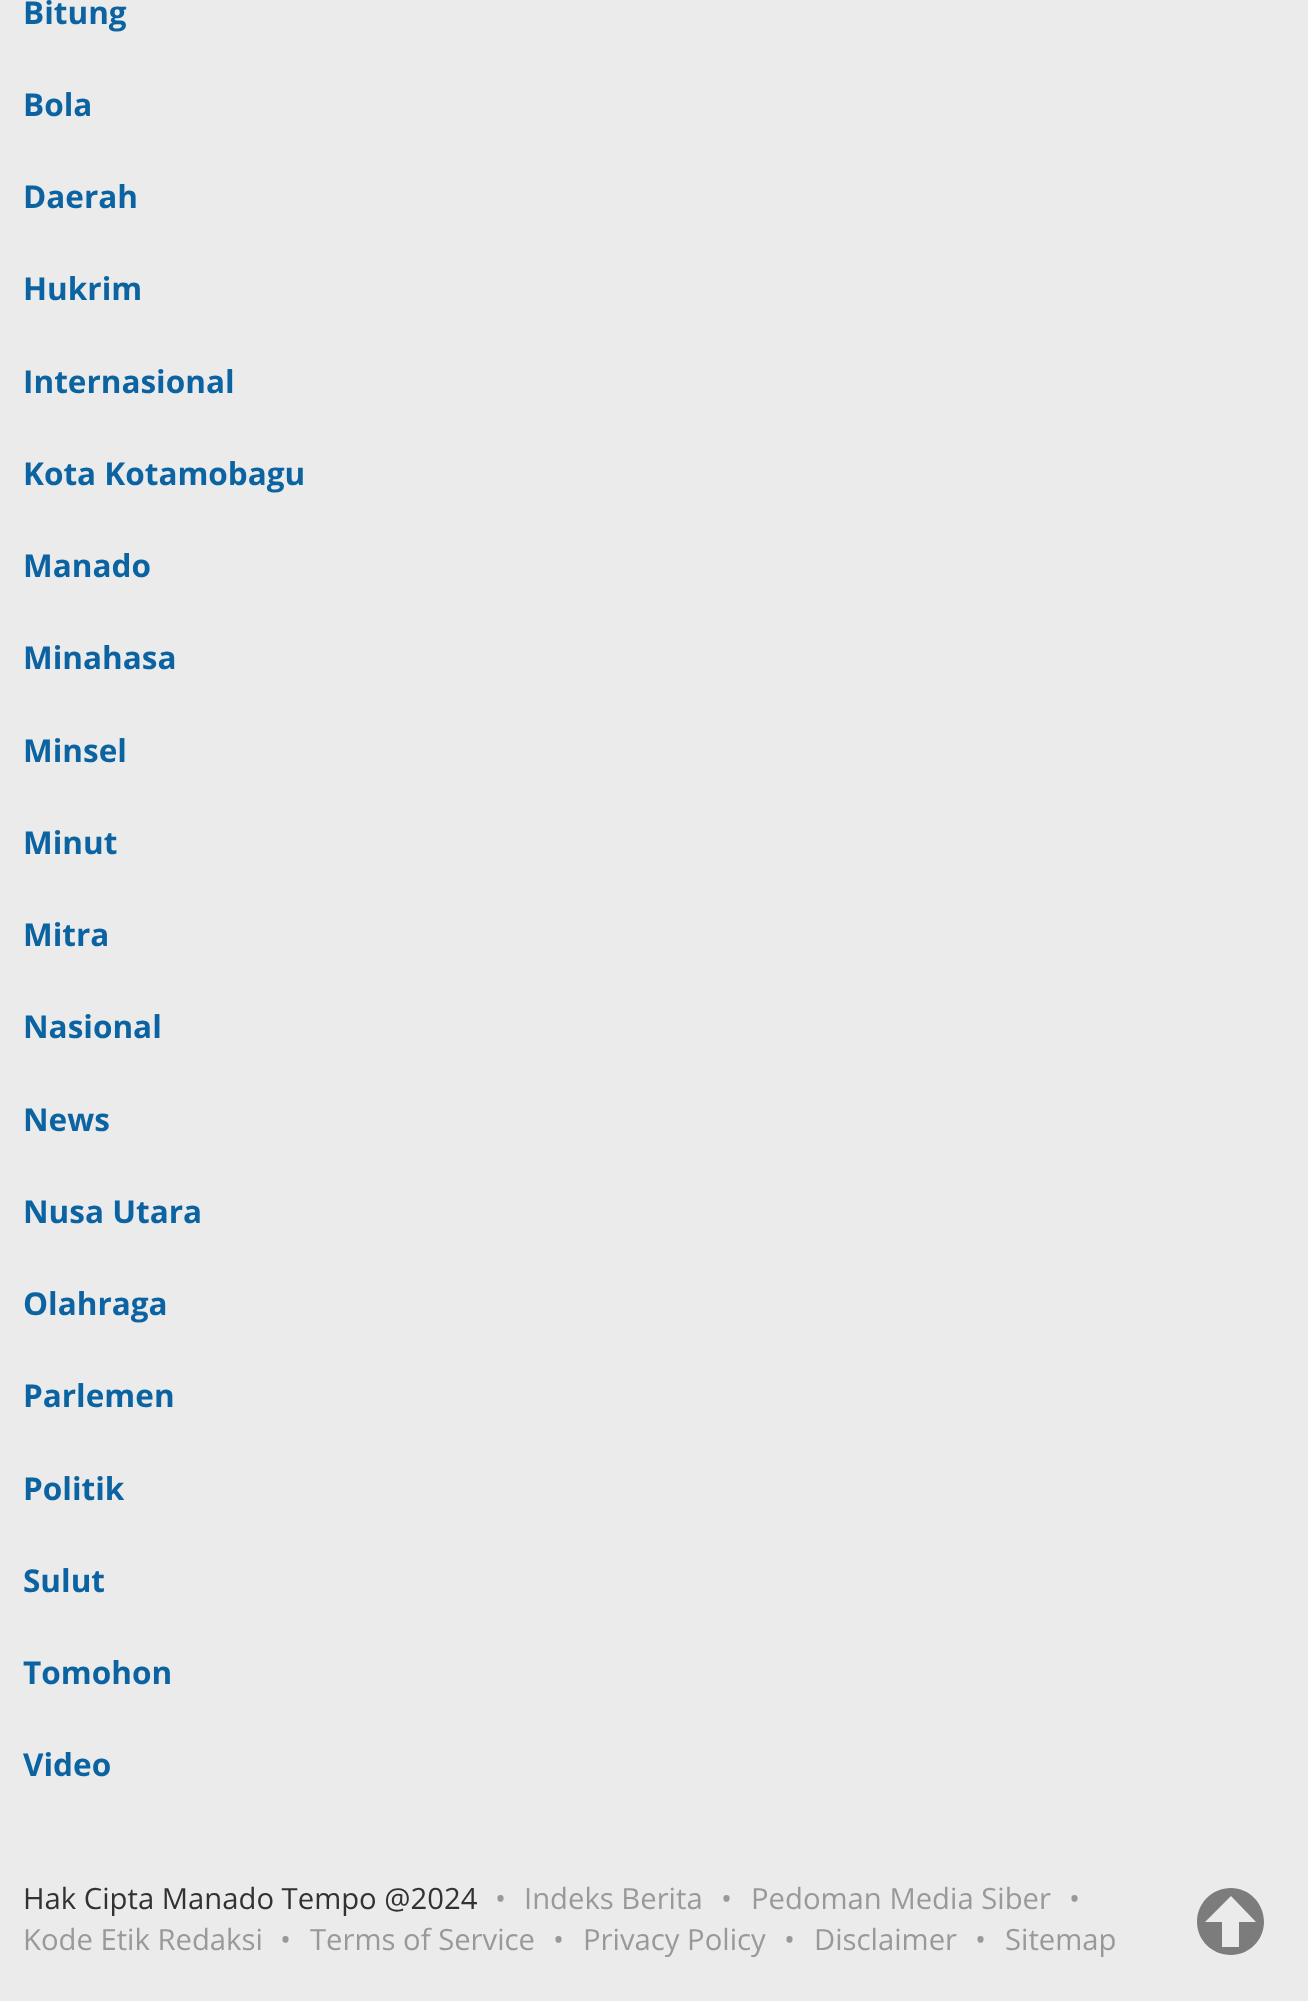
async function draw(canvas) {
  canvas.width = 1308;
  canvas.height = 2001;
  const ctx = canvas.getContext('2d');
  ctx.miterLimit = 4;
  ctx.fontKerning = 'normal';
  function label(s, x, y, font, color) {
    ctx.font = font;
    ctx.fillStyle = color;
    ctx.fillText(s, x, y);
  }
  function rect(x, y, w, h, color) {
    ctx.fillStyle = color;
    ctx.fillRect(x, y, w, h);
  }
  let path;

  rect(0, 0, 1308, 2001, '#ebebeb');
  label('Bitung', 23, 24, 'bold 31.5px Open Sans', '#0b63a1');
  label('Bola', 23, 116, 'bold 31.5px Open Sans', '#0b63a1');
  label('Daerah', 23, 208, 'bold 31.5px Open Sans', '#0b63a1');
  label('Hukrim', 23, 300, 'bold 31.5px Open Sans', '#0b63a1');
  label('Internasional', 23, 393, 'bold 31.5px Open Sans', '#0b63a1');
  label('Kota Kotamobagu', 23, 485, 'bold 31.5px Open Sans', '#0b63a1');
  label('Manado', 23, 577, 'bold 31.5px Open Sans', '#0b63a1');
  label('Minahasa', 23, 669, 'bold 31.5px Open Sans', '#0b63a1');
  label('Minsel', 23, 762, 'bold 31.5px Open Sans', '#0b63a1');
  label('Minut', 23, 854, 'bold 31.5px Open Sans', '#0b63a1');
  label('Mitra', 23, 946, 'bold 31.5px Open Sans', '#0b63a1');
  label('Nasional', 23, 1038, 'bold 31.5px Open Sans', '#0b63a1');
  label('News', 23, 1131, 'bold 31.5px Open Sans', '#0b63a1');
  label('Nusa Utara', 23, 1223, 'bold 31.5px Open Sans', '#0b63a1');
  label('Olahraga', 23, 1315, 'bold 31.5px Open Sans', '#0b63a1');
  label('Parlemen', 23, 1407, 'bold 31.5px Open Sans', '#0b63a1');
  label('Politik', 23, 1500, 'bold 31.5px Open Sans', '#0b63a1');
  label('Sulut', 23, 1592, 'bold 31.5px Open Sans', '#0b63a1');
  label('Tomohon', 23, 1684, 'bold 31.5px Open Sans', '#0b63a1');
  label('Video', 23, 1776, 'bold 31.5px Open Sans', '#0b63a1');
  label('Hak Cipta Manado Tempo @2024', 23, 1909, '29.25px Open Sans', '#323233');
  label('•', 495, 1909, '29.25px Open Sans', '#999');
  label('Indeks Berita', 524, 1909, '29.25px Open Sans', '#999');
  label('•', 721, 1909, '29.25px Open Sans', '#999');
  label('Pedoman Media Siber', 751, 1909, '29.25px Open Sans', '#999');
  label('•', 1069, 1909, '29.25px Open Sans', '#999');
  label('Kode Etik Redaksi', 23, 1950, '29.25px Open Sans', '#999');
  label('•', 280, 1950, '29.25px Open Sans', '#999');
  label('Terms of Service', 310, 1950, '29.25px Open Sans', '#999');
  label('•', 553, 1950, '29.25px Open Sans', '#999');
  label('Privacy Policy', 583, 1950, '29.25px Open Sans', '#999');
  label('•', 784, 1950, '29.25px Open Sans', '#999');
  label('Disclaimer', 814, 1950, '29.25px Open Sans', '#999');
  label('•', 975, 1950, '29.25px Open Sans', '#999');
  label('Sitemap', 1005, 1950, '29.25px Open Sans', '#999');
  ctx.fillStyle = '#7c7c7d';
  path = new Path2D('M1231 1888C1212 1888 1197 1903 1197 1922C1197 1940 1212 1955 1231 1955C1249 1955 1264 1940 1264 1922C1264 1903 1249 1888 1231 1888ZM1231 1896L1256 1922H1239V1947H1222V1922H1205Z');
  ctx.fill(path);
}

draw(document.querySelector('canvas'));
